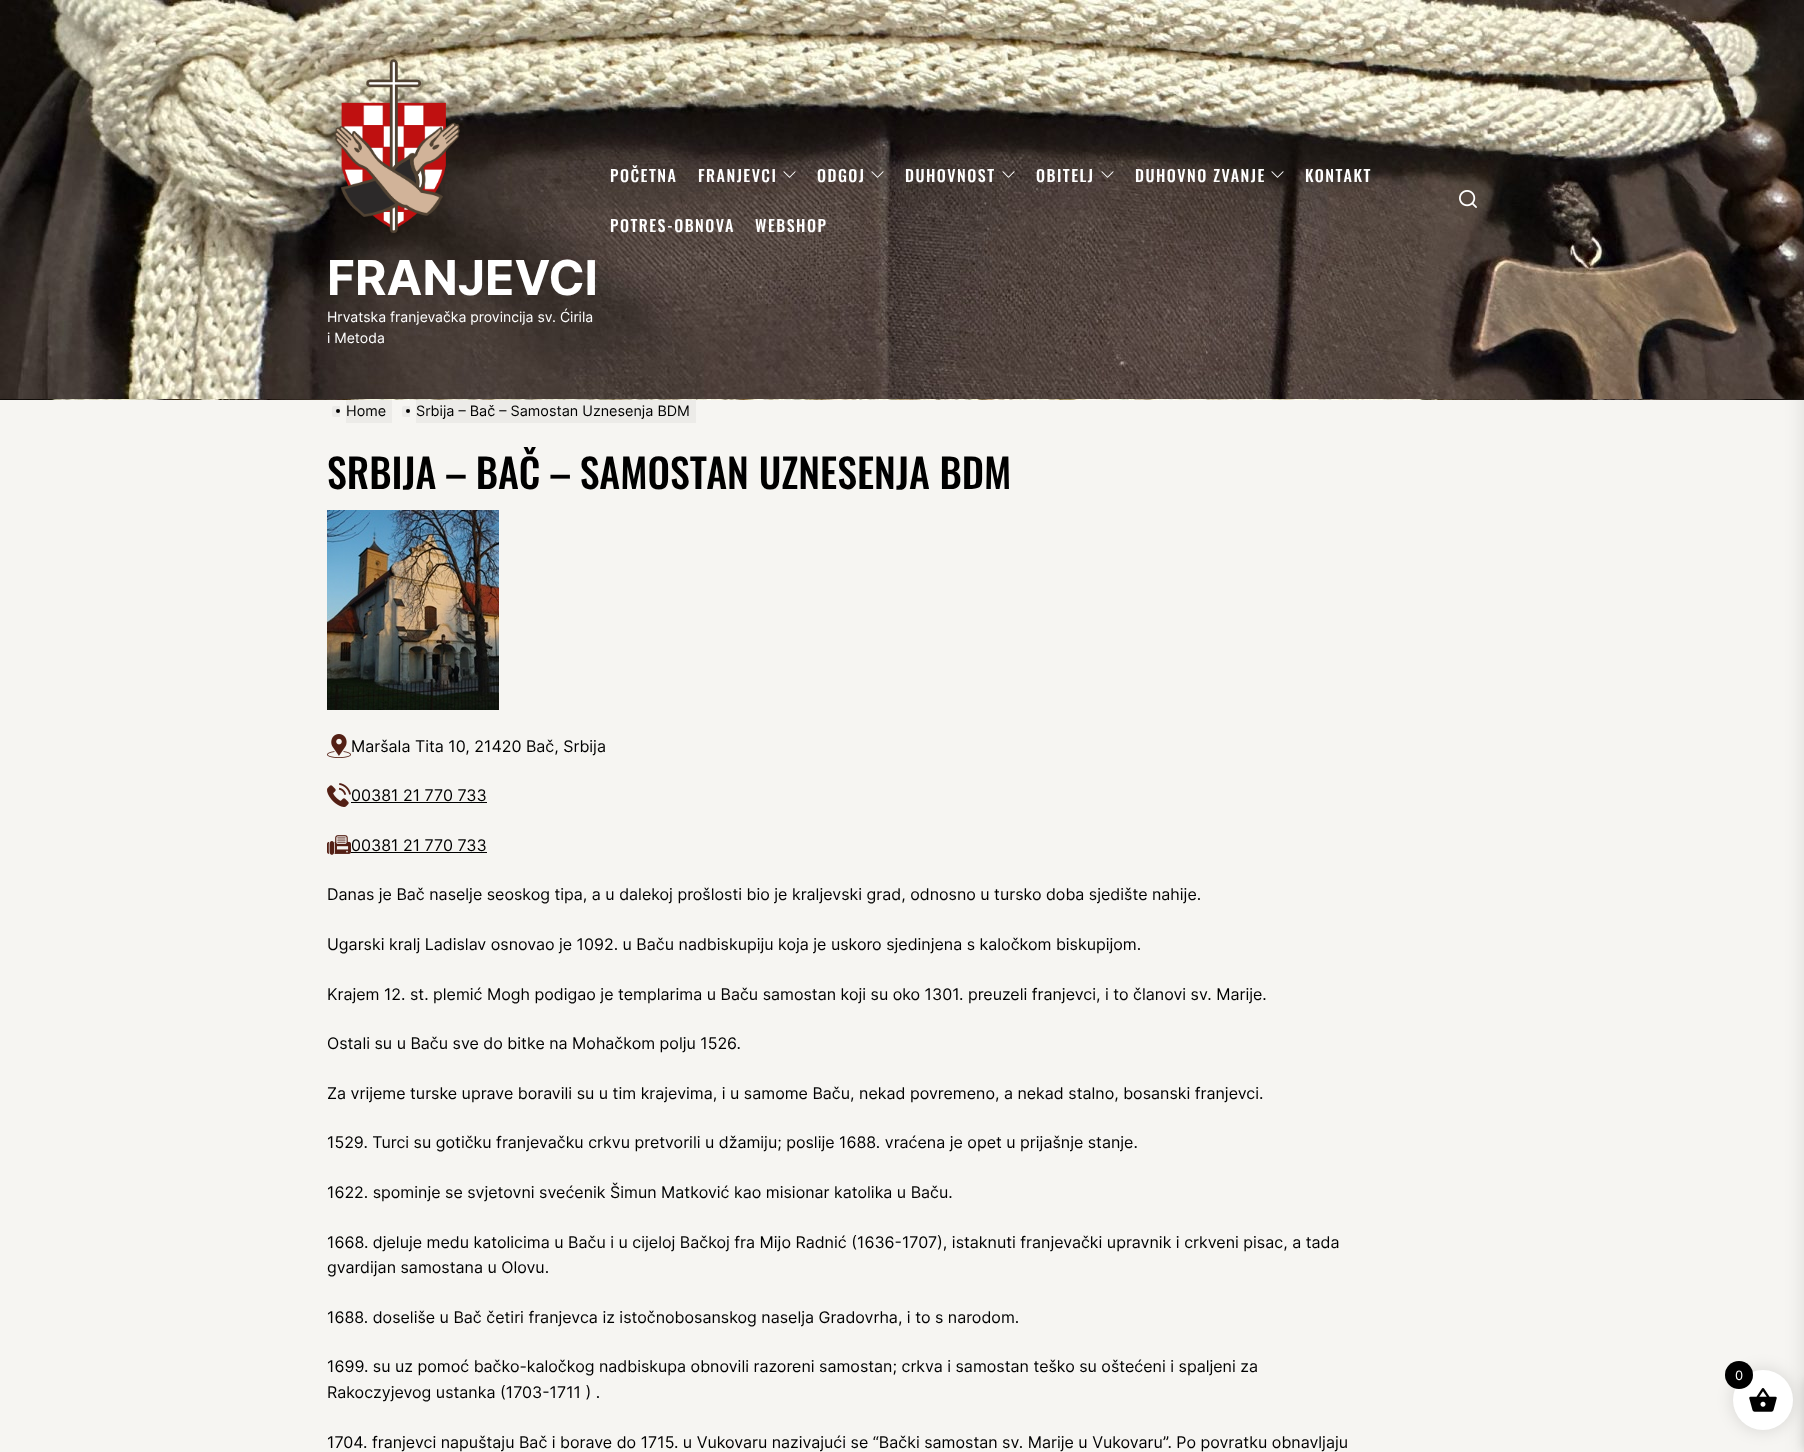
async function draw(canvas) {
  canvas.width = 1804;
  canvas.height = 1452;
  const ctx = canvas.getContext('2d');
  ctx.miterLimit = 4;
  ctx.fontKerning = 'normal';
  function label(s, x, y, font, color) {
    ctx.font = font;
    ctx.fillStyle = color;
    ctx.fillText(s, x, y);
  }
  function rect(x, y, w, h, color) {
    ctx.fillStyle = color;
    ctx.fillRect(x, y, w, h);
  }
  async function image(src, x, y, w, h) {
    const img = new Image();
    img.src = src;
    await img.decode();
    ctx.drawImage(img, x, y, w, h);
  }

  rect(0, 0, 1804, 1452, '#f6f5f2');
  await image('assets/img1.png', 0, 0, 1804, 400);
  ctx.letterSpacing = '1.5px';
  label('POČETNA', 610, 182, '500 16px Oswald', '#fff');
  label('FRANJEVCI', 698, 182, '500 16px Oswald', '#fff');
  await image('assets/img2.png', 783, 171, 13, 7);
  label('ODGOJ', 817, 182, '500 16px Oswald', '#fff');
  await image('assets/img3.png', 871, 171, 13, 7);
  label('DUHOVNOST', 905, 182, '500 16px Oswald', '#fff');
  await image('assets/img4.png', 1002, 171, 13, 7);
  label('OBITELJ', 1036, 182, '500 16px Oswald', '#fff');
  await image('assets/img5.png', 1101, 171, 13, 7);
  label('DUHOVNO ZVANJE', 1135, 182, '500 16px Oswald', '#fff');
  await image('assets/img6.png', 1271, 171, 13, 7);
  label('KONTAKT', 1305, 182, '500 16px Oswald', '#fff');
  label('POTRES-OBNOVA', 610, 232, '500 16px Oswald', '#fff');
  label('WEBSHOP', 755, 232, '500 16px Oswald', '#fff');
  await image('assets/img7.png', 1459, 190, 18, 18);
  await image('assets/img8.png', 334, 59, 126, 174);
  ctx.letterSpacing = '0px';
  label('FRANJEVCI', 327, 295, 'bold 48px Inter', '#fff');
  label('Hrvatska franjevačka provincija sv. Ćirila', 327, 322, '14px Inter', '#fff');
  label('i Metoda', 327, 343, '14px Inter', '#fff');
  ctx.fillStyle = '#0000001a';
  ctx.filter = 'blur(10px)';
  ctx.beginPath();
  ctx.rect(1804, 0, 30, 1452);
  ctx.fill();
  ctx.filter = 'none';
  ctx.fillStyle = '#ebeae8';
  ctx.beginPath();
  ctx.roundRect(332, 406, 8, 11, [2, 0, 0, 2]);
  ctx.fill();
  rect(346, 399, 46, 24, '#0000000a');
  ctx.fillStyle = '#000';
  ctx.beginPath();
  ctx.arc(338, 411, 2, 0, 2 * Math.PI);
  ctx.fill();
  label('Home', 346, 416, '14.4px Inter', '#000');
  ctx.fillStyle = '#ebeae8';
  ctx.beginPath();
  ctx.roundRect(402, 406, 8, 11, [2, 0, 0, 2]);
  ctx.fill();
  rect(416, 399, 280, 24, '#0000000a');
  ctx.fillStyle = '#000';
  ctx.beginPath();
  ctx.arc(408, 411, 2, 0, 2 * Math.PI);
  ctx.fill();
  label('Srbija – Bač – Samostan Uznesenja BDM', 416, 416, '14.4px Inter', '#000');
  label('SRBIJA – BAČ – SAMOSTAN UZNESENJA BDM', 327, 489, '500 40px Oswald', '#000');
  await image('assets/img9.png', 327, 510, 172, 200);
  await image('assets/img10.png', 327, 734, 24, 24);
  label('Maršala Tita 10, 21420 Bač, Srbija', 351, 752, '16px Inter', '#000');
  await image('assets/img11.png', 327, 783, 24, 24);
  label('00381 21 770 733', 351, 801, '16px Inter', '#000');
  rect(351, 802, 136, 1, '#000');
  await image('assets/img12.png', 327, 835, 24, 20);
  label('00381 21 770 733', 351, 851, '16px Inter', '#000');
  rect(351, 852, 136, 1, '#000');
  label('Danas je Bač naselje seoskog tipa, a u dalekoj prošlosti bio je kraljevski grad, odnosno u tursko doba sjedište nahije.', 327, 900, '16px Inter', '#000');
  label('Ugarski kralj Ladislav osnovao je 1092. u Baču nadbiskupiju koja je uskoro sjedinjena s kaločkom biskupijom.', 327, 950, '16px Inter', '#000');
  label('Krajem 12. st. plemić Mogh podigao je templarima u Baču samostan koji su oko 1301. preuzeli franjevci, i to članovi sv. Marije.', 327, 1000, '16px Inter', '#000');
  label('Ostali su u Baču sve do bitke na Mohačkom polju 1526.', 327, 1049, '16px Inter', '#000');
  label('Za vrijeme turske uprave boravili su u tim krajevima, i u samome Baču, nekad povremeno, a nekad stalno, bosanski franjevci.', 327, 1099, '16px Inter', '#000');
  label('1529. Turci su gotičku franjevačku crkvu pretvorili u džamiju; poslije 1688. vraćena je opet u prijašnje stanje.', 327, 1148, '16px Inter', '#000');
  label('1622. spominje se svjetovni svećenik Šimun Matković kao misionar katolika u Baču.', 327, 1198, '16px Inter', '#000');
  label('1668. djeluje medu katolicima u Baču i u cijeloj Bačkoj fra Mijo Radnić (1636-1707), istaknuti franjevački upravnik i crkveni pisac, a tada', 327, 1248, '16px Inter', '#000');
  label('gvardijan samostana u Olovu.', 327, 1273, '16px Inter', '#000');
  label('1688. doseliše u Bač četiri franjevca iz istočnobosanskog naselja Gradovrha, i to s narodom.', 327, 1323, '16px Inter', '#000');
  label('1699. su uz pomoć bačko-kaločkog nadbiskupa obnovili razoreni samostan; crkva i samostan teško su oštećeni i spaljeni za', 327, 1372, '16px Inter', '#000');
  label('Rakoczyjevog ustanka (1703-1711 ) .', 327, 1398, '16px Inter', '#000');
  label('1704. franjevci napuštaju Bač i borave do 1715. u Vukovaru nazivajući se “Bački samostan sv. Marije u Vukovaru”. Po povratku obnavljaju', 327, 1448, '16px Inter', '#000');
  ctx.fillStyle = '#0000001a';
  ctx.filter = 'blur(7.5px)';
  ctx.beginPath();
  ctx.roundRect(1731, 1368, 64, 64, 32);
  ctx.fill();
  ctx.filter = 'none';
  ctx.filter = 'blur(5px)';
  ctx.beginPath();
  ctx.rect(1804, 1380, 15, 71);
  ctx.fill();
  ctx.filter = 'none';
  ctx.fillStyle = '#fff';
  ctx.beginPath();
  ctx.arc(1763, 1400, 30, 0, 2 * Math.PI);
  ctx.fill();
  await image('assets/img13.png', 1749, 1388, 28, 24);
  ctx.fillStyle = '#000';
  ctx.beginPath();
  ctx.arc(1739, 1375, 14, 0, 2 * Math.PI);
  ctx.fill();
  label('0', 1735, 1380, '13px Inter', '#fff');
}

draw(document.querySelector('canvas'));
